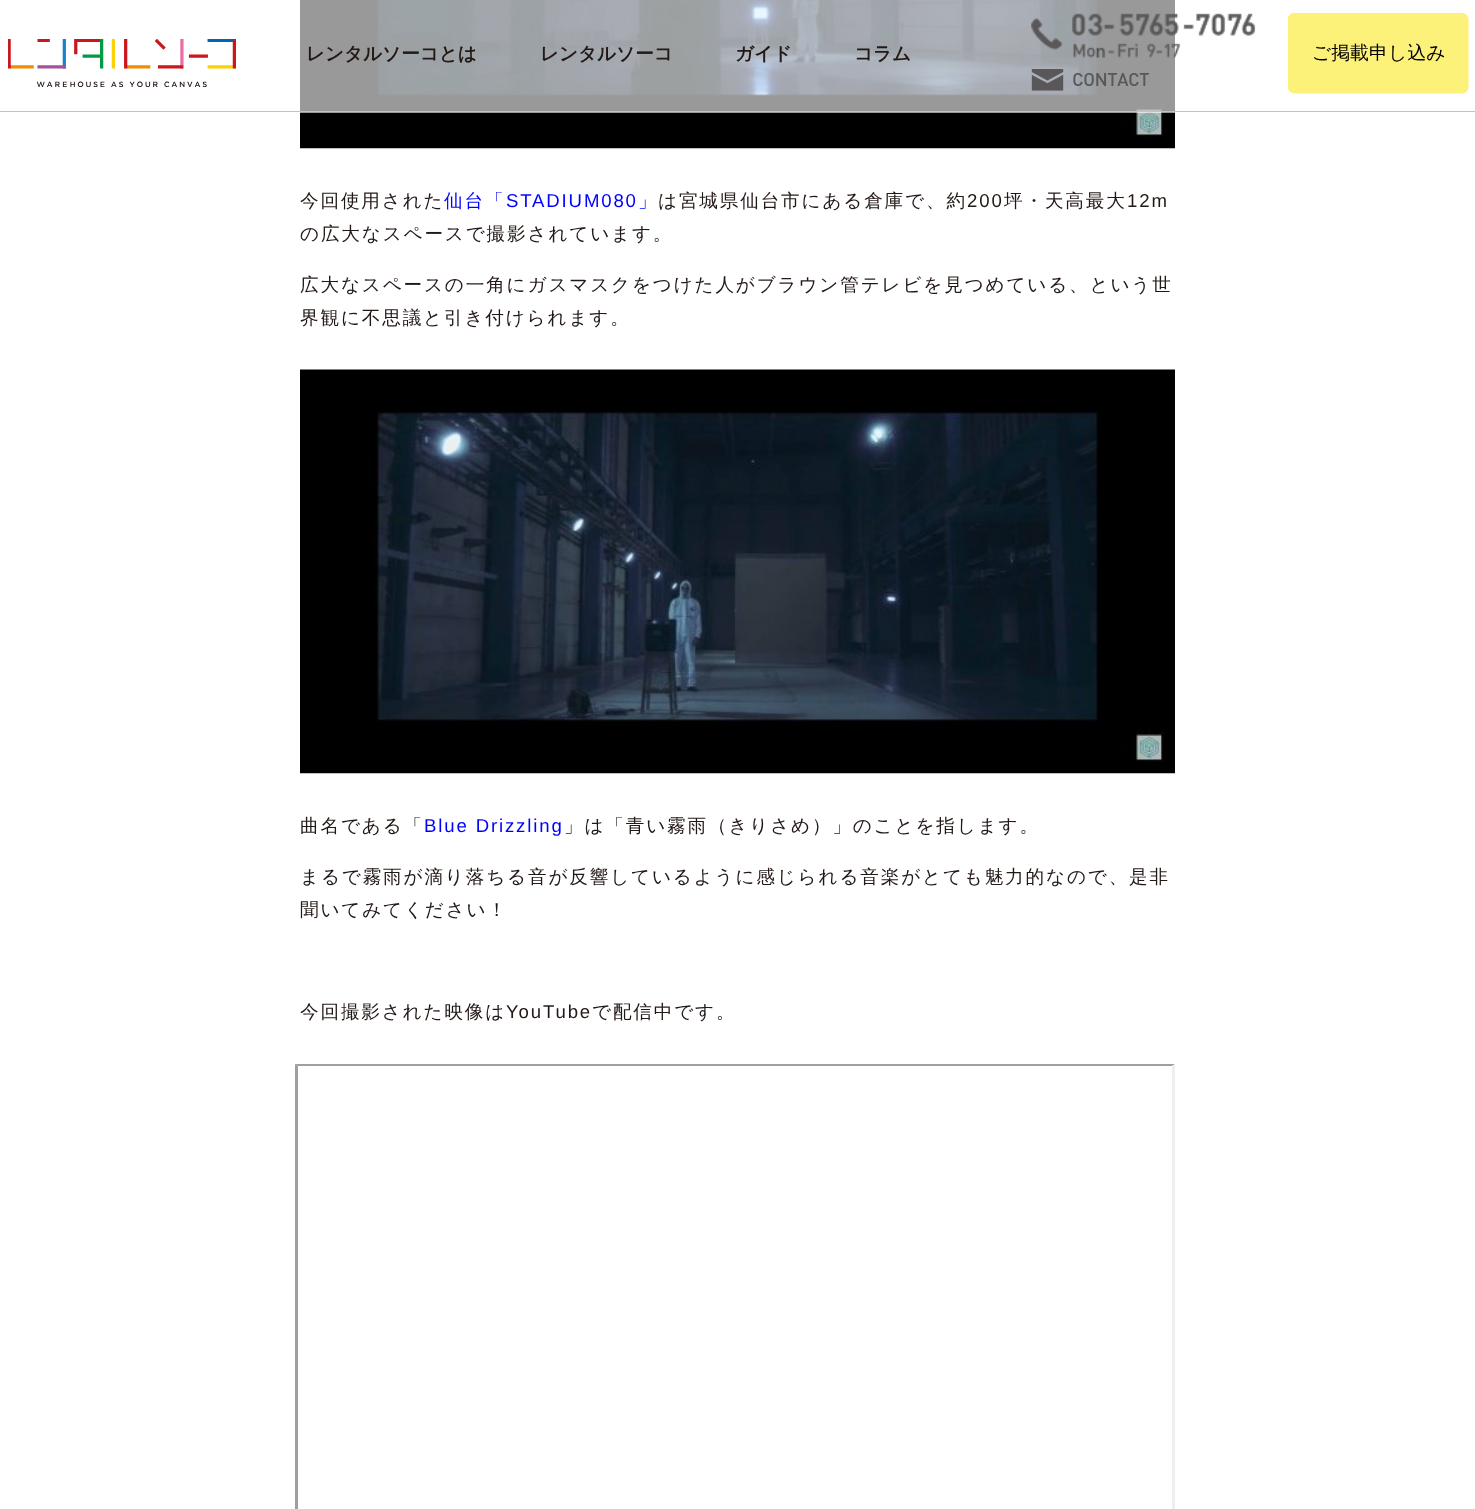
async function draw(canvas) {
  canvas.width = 1475;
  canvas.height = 1509;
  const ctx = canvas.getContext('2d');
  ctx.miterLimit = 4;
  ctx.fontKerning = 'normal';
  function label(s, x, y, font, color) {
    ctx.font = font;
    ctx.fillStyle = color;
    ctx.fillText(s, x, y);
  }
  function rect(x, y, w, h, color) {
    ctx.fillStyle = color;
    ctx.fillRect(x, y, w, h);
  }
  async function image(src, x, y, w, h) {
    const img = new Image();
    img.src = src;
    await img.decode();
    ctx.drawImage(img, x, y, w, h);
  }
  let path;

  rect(0, 0, 1475, 1509, '#fff');
  await image('assets/img5.png', 300, 0, 875, 149);
  rect(300, 0, 875, 113, '#ffffff99');
  rect(0, 111, 1475, 1, '#c2c2c2');
  await image('assets/img1.png', 8, 39, 228, 48);
  label('レンタルソーコとは', 306, 60, 'bold 18.6px WenQuanYi Zen Hei', '#221815');
  label('レンタルソーコ', 540, 60, 'bold 18.6px WenQuanYi Zen Hei', '#221815');
  label('ガイド', 735, 60, 'bold 18.6px WenQuanYi Zen Hei', '#221815');
  label('コラム', 854, 60, 'bold 18.6px WenQuanYi Zen Hei', '#221815');
  await image('assets/img2.png', 1031, 13, 225, 45);
  await image('assets/img3.png', 1031, 69, 118, 22);
  await image('assets/img4.png', 1288, 13, 181, 81);
  ctx.letterSpacing = '1.85px';
  label('今回使用された', 300, 207, '500 18.6px WenQuanYi Zen Hei', '#221815');
  label('仙台「', 444, 207, '500 18.6px WenQuanYi Zen Hei', '#00f');
  label('STADIUM080', 506, 207, '18.6px Liberation Sans', '#00f');
  label('」', 638, 207, '500 18.6px WenQuanYi Zen Hei', '#00f');
  label('は宮城県仙台市にある倉庫で、約', 658, 207, '500 18.6px WenQuanYi Zen Hei', '#221815');
  label('200', 967, 207, '18.6px Liberation Sans', '#221815');
  label('坪・天高最大', 1004, 207, '500 18.6px WenQuanYi Zen Hei', '#221815');
  label('12m', 1127, 207, '18.6px Liberation Sans', '#221815');
  label('の広大なスペースで撮影されています。', 300, 240, '500 18.6px WenQuanYi Zen Hei', '#221815');
  label('広大なスペースの一角にガスマスクをつけた人がブラウン管テレビを見つめている、という世', 300, 291, '500 18.6px WenQuanYi Zen Hei', '#221815');
  label('界観に不思議と引き付けられます。', 300, 324, '500 18.6px WenQuanYi Zen Hei', '#221815');
  await image('assets/img6.png', 300, 369, 875, 405);
  label('曲名である「', 300, 832, '500 18.6px WenQuanYi Zen Hei', '#221815');
  label('Blue Drizzling', 424, 832, '18.6px Liberation Sans', '#00f');
  label('」は「青い霧雨（きりさめ）」のことを指します。', 564, 832, '500 18.6px WenQuanYi Zen Hei', '#221815');
  label('まるで霧雨が滴り落ちる音が反響しているように感じられる音楽がとても魅力的なので、是非', 300, 883, '500 18.6px WenQuanYi Zen Hei', '#221815');
  label('聞いてみてください！', 300, 916, '500 18.6px WenQuanYi Zen Hei', '#221815');
  label('今回撮影された映像は', 300, 1018, '500 18.6px WenQuanYi Zen Hei', '#221815');
  label('YouTube', 506, 1018, '18.6px Liberation Sans', '#221815');
  label('で配信中です。', 592, 1018, '500 18.6px WenQuanYi Zen Hei', '#221815');
  ctx.fillStyle = '#9f9f9f';
  path = new Path2D('M295 1064H1175L1172 1066H298Z');
  ctx.fill(path);
  ctx.fillStyle = '#eee';
  path = new Path2D('M1175 1064V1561L1172 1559V1066Z');
  ctx.fill(path);
  ctx.fillStyle = '#9f9f9f';
  path = new Path2D('M295 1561V1064L298 1066V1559Z');
  ctx.fill(path);
}

draw(document.querySelector('canvas'));
